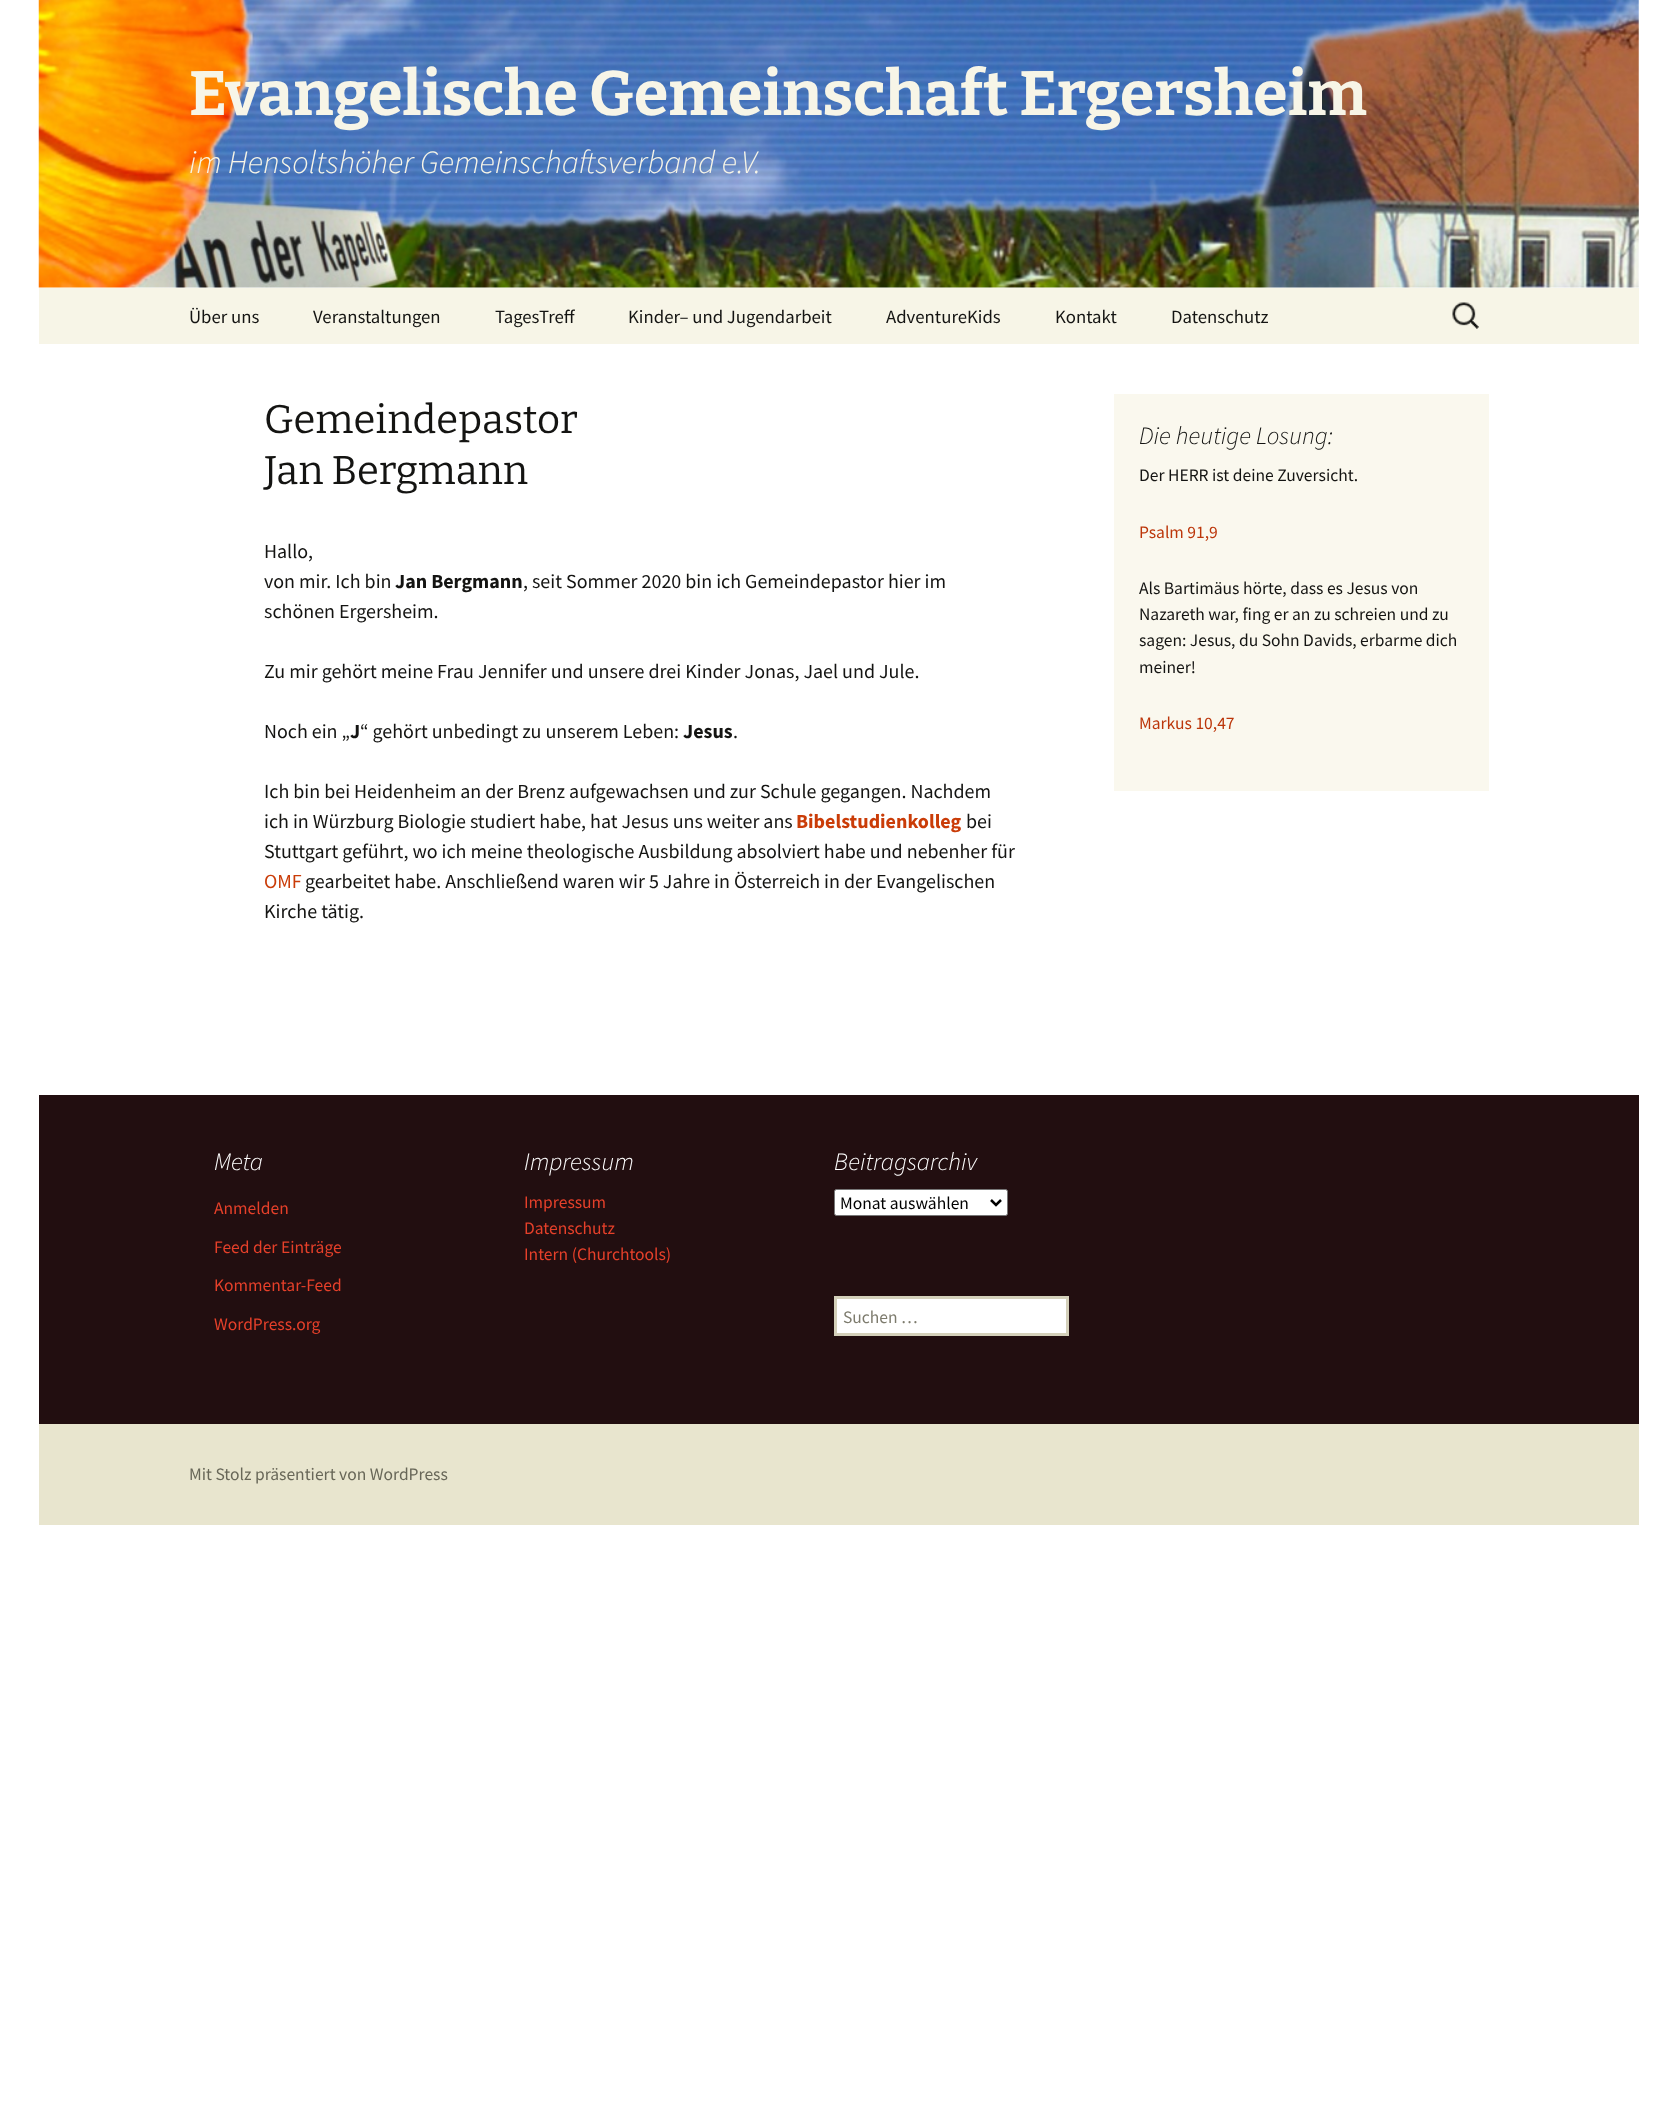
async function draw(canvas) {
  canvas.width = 1677;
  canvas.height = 2126;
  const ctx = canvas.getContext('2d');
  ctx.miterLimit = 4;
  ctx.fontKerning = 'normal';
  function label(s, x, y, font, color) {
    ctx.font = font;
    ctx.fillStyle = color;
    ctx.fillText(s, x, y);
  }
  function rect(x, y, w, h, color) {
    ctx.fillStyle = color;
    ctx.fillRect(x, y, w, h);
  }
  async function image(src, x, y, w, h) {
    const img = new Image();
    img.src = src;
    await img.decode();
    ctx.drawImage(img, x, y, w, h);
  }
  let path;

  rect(0, 0, 1677, 2126, '#fff');
  await image('assets/img1.png', 38, 0, 1601, 288);
  label('Evangelische Gemeinschaft Ergersheim', 189, 115, '100 62.5px Bitter', '#f7f5e7');
  label('im Hensoltshöher Gemeinschaftsverband e.V.', 189, 173, 'italic 300 32.5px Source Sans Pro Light', '#f7f5e7');
  rect(39, 288, 1600, 56, '#f7f5e7');
  label('Über uns', 189, 323, '18.75px Source Sans Pro', '#141412');
  label('Veranstaltungen', 313, 323, '18.75px Source Sans Pro', '#141412');
  label('TagesTreff', 495, 323, '18.75px Source Sans Pro', '#141412');
  label('Kinder– und Jugendarbeit', 628, 323, '18.75px Source Sans Pro', '#141412');
  label('AdventureKids', 886, 323, '18.75px Source Sans Pro', '#141412');
  label('Kontakt', 1055, 323, '18.75px Source Sans Pro', '#141412');
  label('Datenschutz', 1171, 323, '18.75px Source Sans Pro', '#141412');
  await image('assets/img2.png', 1452, 302, 27, 27);
  label('Gemeindepastor', 264, 433, '100 40px "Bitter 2"', '#141412');
  label('Jan Bergmann', 264, 484, '100 40px "Bitter 2"', '#141412');
  label('Hallo,', 264, 558, '20px Source Sans Pro', '#141412');
  label('von mir. Ich bin', 264, 588, '20px Source Sans Pro', '#141412');
  label('Jan Bergmann', 395, 588, 'bold 20px Source Sans Pro', '#141412');
  label(', seit Sommer 2020 bin ich Gemeindepastor hier im', 523, 588, '20px Source Sans Pro', '#141412');
  label('schönen Ergersheim.', 264, 618, '20px Source Sans Pro', '#141412');
  label('Zu mir gehört meine Frau Jennifer und unsere drei Kinder Jonas, Jael und Jule.', 264, 678, '20px Source Sans Pro', '#141412');
  label('Noch ein „', 264, 738, '20px Source Sans Pro', '#141412');
  label('J', 350, 738, 'bold 20px Source Sans Pro', '#141412');
  label('“ gehört unbedingt zu unserem Leben:', 360, 738, '20px Source Sans Pro', '#141412');
  label('Jesus', 683, 738, 'bold 20px Source Sans Pro', '#141412');
  label('.', 733, 738, '20px Source Sans Pro', '#141412');
  label('Ich bin bei Heidenheim an der Brenz aufgewachsen und zur Schule gegangen. Nachdem', 264, 798, '20px Source Sans Pro', '#141412');
  label('ich in Würzburg Biologie studiert habe, hat Jesus uns weiter ans', 264, 828, '20px Source Sans Pro', '#141412');
  label('Bibelstudienkolleg', 796, 828, 'bold 20px Source Sans Pro', '#ca3c08');
  label('bei', 966, 828, '20px Source Sans Pro', '#141412');
  label('Stuttgart geführt, wo ich meine theologische Ausbildung absolviert habe und nebenher für', 264, 858, '20px Source Sans Pro', '#141412');
  label('OMF', 264, 888, '20px Source Sans Pro', '#ca3c08');
  label('gearbeitet habe. Anschließend waren wir 5 Jahre in Österreich in der Evangelischen', 305, 888, '20px Source Sans Pro', '#141412');
  label('Kirche tätig.', 264, 918, '20px Source Sans Pro', '#141412');
  rect(1114, 394, 375, 397, '#faf8ee');
  label('Die heutige Losung:', 1139, 444, 'italic 300 25px Source Sans Pro Light', '#141412');
  label('Der HERR ist deine Zuversicht.', 1139, 481, '17.5px Source Sans Pro', '#141412');
  label('Psalm 91,9', 1139, 538, '17.5px Source Sans Pro', '#bc360a');
  label('Als Bartimäus hörte, dass es Jesus von', 1139, 594, '17.5px Source Sans Pro', '#141412');
  label('Nazareth war, fing er an zu schreien und zu', 1139, 620, '17.5px Source Sans Pro', '#141412');
  label('sagen: Jesus, du Sohn Davids, erbarme dich', 1139, 646, '17.5px Source Sans Pro', '#141412');
  label('meiner!', 1139, 673, '17.5px Source Sans Pro', '#141412');
  label('Markus 10,47', 1139, 729, '17.5px Source Sans Pro', '#bc360a');
  rect(39, 1424, 1600, 101, '#e8e5ce');
  rect(39, 1095, 1600, 329, '#220e10');
  label('Meta', 214, 1170, 'italic 300 25px Source Sans Pro Light', '#fff');
  label('Anmelden', 214, 1214, '17.5px Source Sans Pro', '#e6402a');
  label('Feed der Einträge', 214, 1253, '17.5px Source Sans Pro', '#e6402a');
  label('Kommentar-Feed', 214, 1291, '17.5px Source Sans Pro', '#e6402a');
  label('WordPress.org', 214, 1330, '17.5px Source Sans Pro', '#e6402a');
  label('Impressum', 524, 1170, 'italic 300 25px Source Sans Pro Light', '#fff');
  label('Impressum', 524, 1208, '17.5px Source Sans Pro', '#e6402a');
  label('Datenschutz', 524, 1234, '17.5px Source Sans Pro', '#e6402a');
  label('Intern (Churchtools)', 524, 1260, '17.5px Source Sans Pro', '#e6402a');
  label('Beitragsarchiv', 834, 1170, 'italic 300 25px Source Sans Pro Light', '#fff');
  ctx.beginPath();
  ctx.roundRect(834.5, 1189.5, 173, 26, 2);
  ctx.fill();
  ctx.strokeStyle = '#767676';
  ctx.stroke();
  path = new Path2D('M991 1200L996 1205L1001 1200');
  ctx.strokeStyle = '#000';
  ctx.lineWidth = 2.5;
  ctx.stroke(path);
  label('Monat auswählen', 840, 1209, '17.5px Source Sans Pro', '#000');
  ctx.fillStyle = '#fff';
  ctx.beginPath();
  ctx.rect(835.5, 1297.5, 232, 37);
  ctx.fill();
  ctx.strokeStyle = '#d4d0ba';
  ctx.lineWidth = 3;
  ctx.stroke();
  label('Suchen …', 843, 1323, '17.5px Source Sans Pro', '#7d7b6d');
  label('Mit Stolz präsentiert von WordPress', 189, 1480, '17.5px Source Sans Pro', '#686758');
}

draw(document.querySelector('canvas'));
